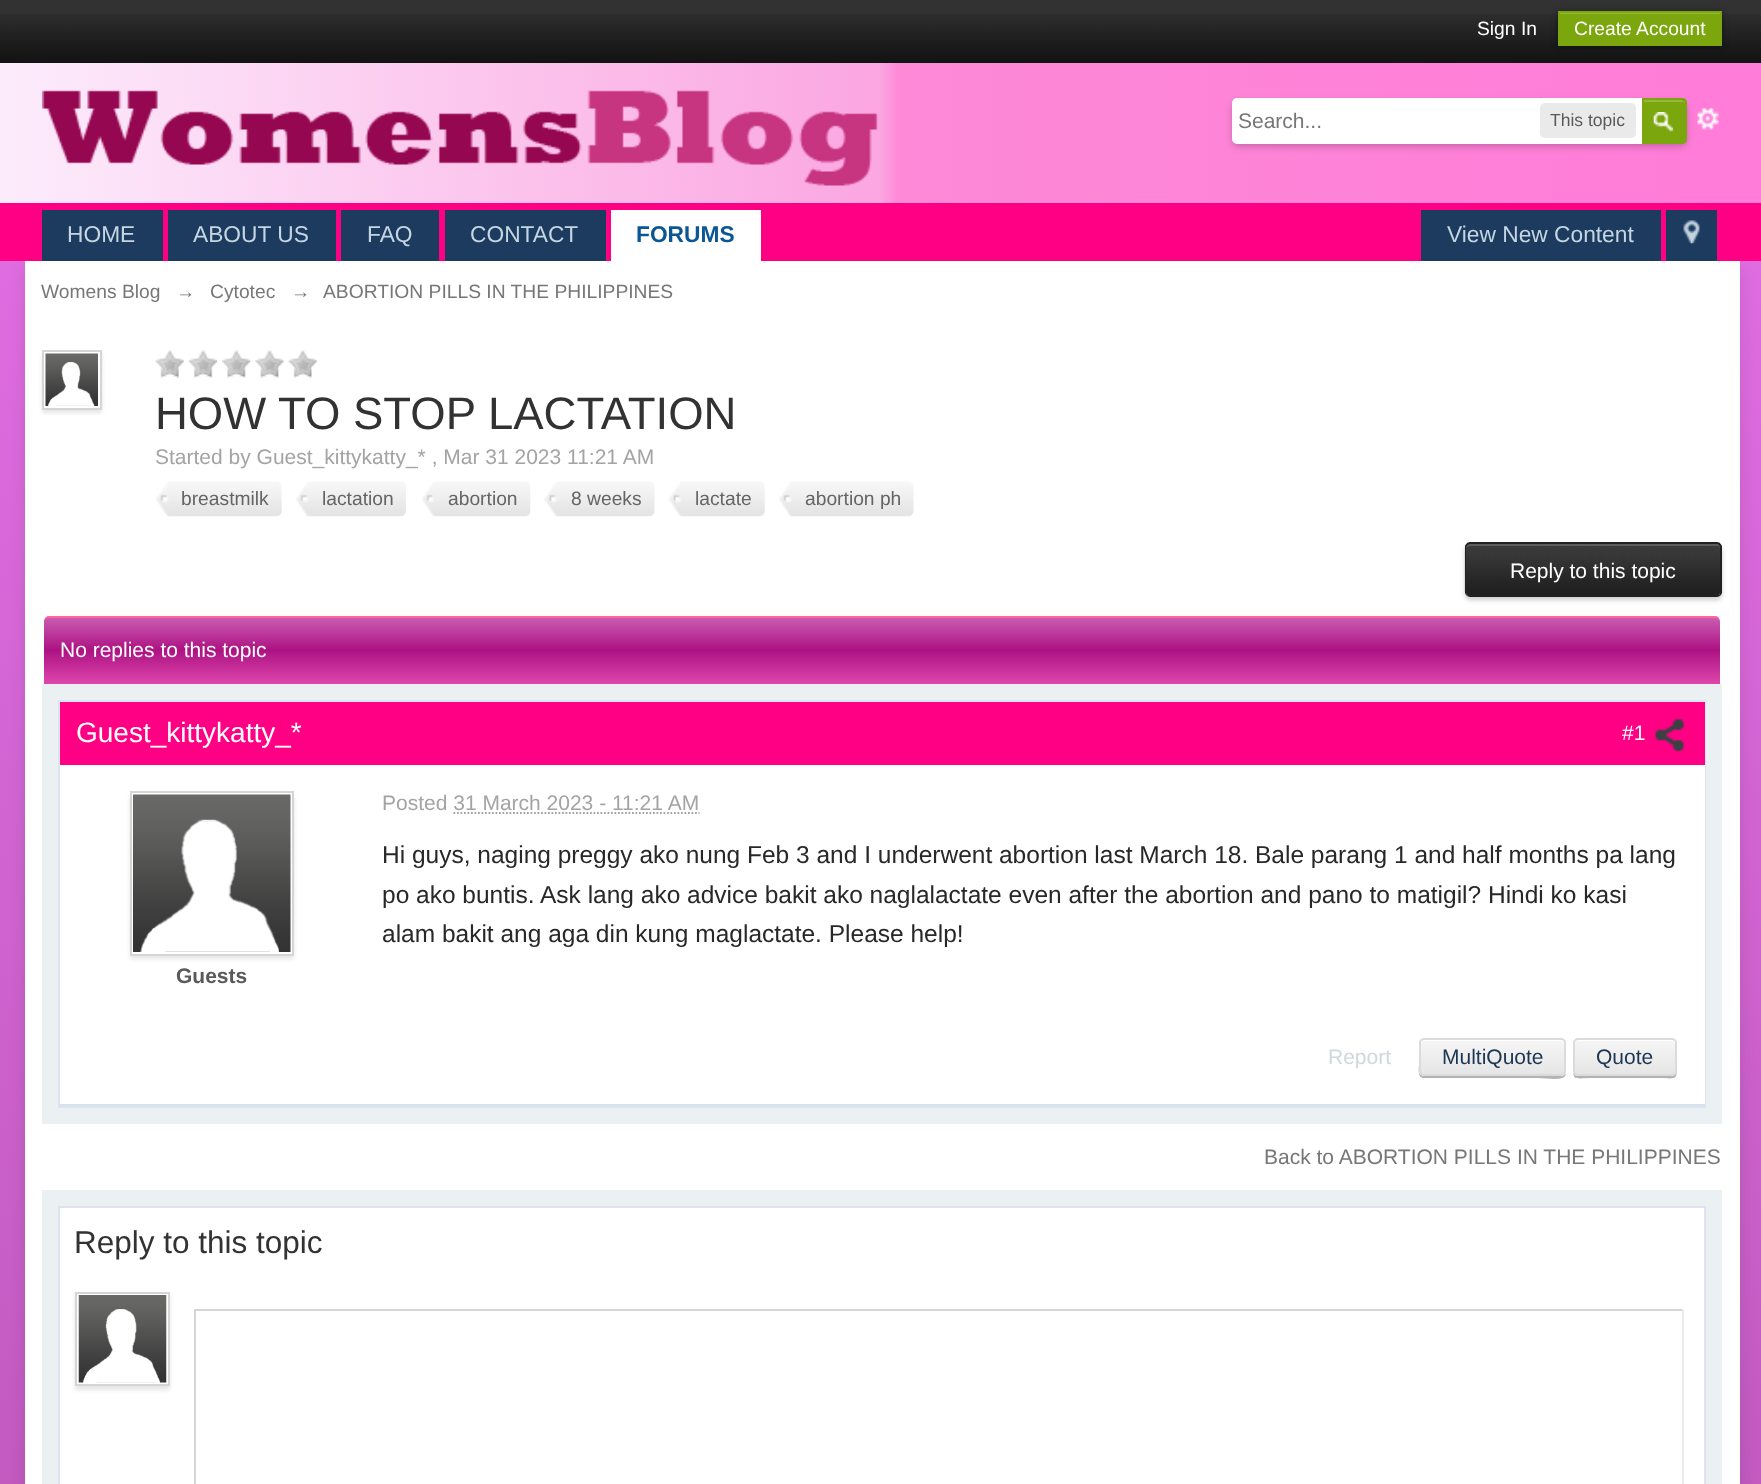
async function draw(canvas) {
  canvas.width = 1761;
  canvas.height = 1484;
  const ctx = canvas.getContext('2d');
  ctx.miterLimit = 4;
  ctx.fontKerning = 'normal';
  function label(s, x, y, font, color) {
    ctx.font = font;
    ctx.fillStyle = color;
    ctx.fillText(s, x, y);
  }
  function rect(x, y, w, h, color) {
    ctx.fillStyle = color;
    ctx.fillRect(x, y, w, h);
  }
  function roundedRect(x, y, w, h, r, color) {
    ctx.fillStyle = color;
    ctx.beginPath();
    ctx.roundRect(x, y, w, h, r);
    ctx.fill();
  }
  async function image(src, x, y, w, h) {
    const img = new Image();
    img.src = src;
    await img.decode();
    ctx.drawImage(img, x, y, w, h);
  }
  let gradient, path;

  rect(0, 0, 1761, 1484, '#fff');
  gradient = ctx.createLinearGradient(881, 0, 881, 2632);
  gradient.addColorStop(0, '#e570e7');
  gradient.addColorStop(0.47, '#c85ec7');
  gradient.addColorStop(1, '#a849a3');
  ctx.fillStyle = gradient;
  ctx.fillRect(0, 261, 1761, 1223);
  rect(0, 0, 1761, 14, '#323232');
  await image('assets/img1.png', 0, 14, 1761, 49);
  label('Sign In', 1477, 35, '19.25px Liberation Sans', '#fff');
  ctx.fillStyle = '#00000066';
  ctx.filter = 'blur(3.5px)';
  ctx.beginPath();
  ctx.rect(1558, 12, 164, 35);
  ctx.fill();
  ctx.filter = 'none';
  rect(1560, 14, 160, 30, '#7ba60d');
  rect(1559, 13, 161, 1, '#95b83d');
  ctx.strokeStyle = '#7ba60d';
  ctx.lineWidth = 2;
  ctx.strokeRect(1559, 12, 162, 33);
  label('Create Account', 1574, 35, '19.25px Liberation Sans', '#fff');
  gradient = ctx.createLinearGradient(0, 133, 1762, 133);
  gradient.addColorStop(0, '#fcecfc');
  gradient.addColorStop(0.5, '#fba6e1');
  gradient.addColorStop(0.51, '#fd89d7');
  gradient.addColorStop(1, '#ff7cd8');
  ctx.fillStyle = gradient;
  ctx.fillRect(0, 63, 1761, 140);
  await image('assets/img2.png', 42, 90, 836, 96);
  await image('assets/img4.png', 1697, 108, 22, 22);
  ctx.fillStyle = '#00000033';
  ctx.filter = 'blur(3.5px)';
  ctx.beginPath();
  ctx.roundRect(1232, 102, 455, 45, 7);
  ctx.fill();
  ctx.filter = 'none';
  ctx.fillStyle = '#fff';
  ctx.beginPath();
  ctx.roundRect(1232, 98, 455, 46, [5, 7, 7, 5]);
  ctx.fill();
  label('Search...', 1238, 128, '21px Liberation Sans', '#777');
  roundedRect(1540, 103, 96, 35, 5, '#eaeaea');
  label('This topic', 1550, 126, '17.5px Liberation Sans', '#5a5a5a');
  ctx.fillStyle = '#7ba60d';
  ctx.beginPath();
  ctx.roundRect(1642, 98, 45, 46, [0, 5, 5, 0]);
  ctx.fill();
  await image('assets/img3.png', 1653, 112, 20, 20);
  ctx.fillStyle = '#95b83d';
  path = new Path2D('M1643 102H1682C1684 102 1685 103 1685 105V104C1685 102 1683 100 1681 100H1643Z');
  ctx.fill(path);
  ctx.beginPath();
  ctx.roundRect(1643, 99, 43, 44, [0, 4, 4, 0]);
  ctx.stroke();
  rect(0, 203, 1761, 58, '#ff0084');
  ctx.fillStyle = '#0000001a';
  ctx.filter = 'blur(8px)';
  ctx.beginPath();
  ctx.rect(25, 270, 1715, 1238);
  ctx.fill();
  ctx.filter = 'none';
  rect(42, 210, 121, 51, '#1c3b5f');
  label('HOME', 67, 242, '22.75px Liberation Sans', '#c5d5e2');
  rect(168, 210, 168, 51, '#1c3b5f');
  label('ABOUT US', 193, 242, '22.75px Liberation Sans', '#c5d5e2');
  rect(341, 210, 98, 51, '#1c3b5f');
  label('FAQ', 367, 242, '22.75px Liberation Sans', '#c5d5e2');
  rect(445, 210, 161, 51, '#1c3b5f');
  label('CONTACT', 470, 242, '22.75px Liberation Sans', '#c5d5e2');
  rect(611, 210, 150, 51, '#fff');
  label('FORUMS', 636, 242, 'bold 22.75px Liberation Sans', '#0b5794');
  rect(1421, 210, 240, 51, '#1c3b5f');
  label('View New Content', 1447, 242, '22.75px Liberation Sans', '#c5d5e2');
  rect(1666, 210, 51, 51, '#1c3b5f');
  await image('assets/img5.png', 1683, 220, 17, 24);
  rect(25, 261, 1715, 1223, '#fff');
  label('Womens Blog', 41, 298, '19.25px Liberation Sans', '#777');
  label('→', 176, 298, '19.25px Liberation Sans', '#777');
  label('Cytotec', 210, 298, '19.25px Liberation Sans', '#777');
  label('→', 291, 298, '19.25px Liberation Sans', '#777');
  label('ABORTION PILLS IN THE PHILIPPINES', 323, 298, '19.25px Liberation Sans', '#777');
  ctx.fillStyle = '#0000001a';
  ctx.filter = 'blur(2px)';
  ctx.beginPath();
  ctx.rect(42, 354, 60, 59);
  ctx.fill();
  ctx.filter = 'none';
  ctx.fillStyle = '#fff';
  ctx.beginPath();
  ctx.rect(43, 351, 58, 58);
  ctx.fill();
  ctx.strokeStyle = '#d5d5d5';
  ctx.stroke();
  await image('assets/img6.png', 45, 353, 53, 53);
  await image('assets/img7.png', 155, 350, 29, 28);
  await image('assets/img8.png', 189, 350, 28, 28);
  await image('assets/img9.png', 222, 350, 29, 28);
  await image('assets/img10.png', 255, 350, 29, 28);
  await image('assets/img11.png', 288, 350, 29, 28);
  label('HOW TO STOP LACTATION', 155, 429, '45.5px Liberation Sans', '#323232');
  label('Started by Guest_kittykatty_* , Mar 31 2023 11:21 AM', 155, 464, '21px Liberation Sans', '#a4a4a4');
  await image('assets/img12.png', 156, 481, 126, 36);
  label('breastmilk', 181, 505, '19.25px Liberation Sans', '#656565');
  await image('assets/img13.png', 296, 481, 110, 36);
  label('lactation', 322, 505, '19.25px Liberation Sans', '#656565');
  await image('assets/img14.png', 422, 481, 109, 36);
  label('abortion', 448, 505, '19.25px Liberation Sans', '#656565');
  await image('assets/img15.png', 544, 481, 111, 36);
  label('8 weeks', 571, 505, '19.25px Liberation Sans', '#656565');
  await image('assets/img16.png', 668, 481, 97, 36);
  label('lactate', 695, 505, '19.25px Liberation Sans', '#656565');
  await image('assets/img17.png', 779, 481, 135, 36);
  label('abortion ph', 805, 505, '19.25px Liberation Sans', '#656565');
  ctx.fillStyle = '#00000033';
  ctx.filter = 'blur(2.5px)';
  ctx.beginPath();
  ctx.roundRect(1465, 546, 257, 54, 5);
  ctx.fill();
  ctx.filter = 'none';
  ctx.fillStyle = '#212121';
  path = new Path2D('M1470 544H1717C1719 544 1720 546 1720 548V592C1720 594 1719 597 1717 597H1470C1468 597 1466 594 1466 592V548C1466 546 1468 544 1470 544Z');
  ctx.fill(path);
  await image('assets/img18.png', 1464, 544, 258, 50);
  ctx.fillStyle = '#5c5c5c';
  path = new Path2D('M1470 546H1717C1722 546 1720 556 1720 557V593V548C1720 546 1719 544 1717 544H1470C1468 544 1466 546 1466 548C1467 547 1469 546 1470 546Z');
  ctx.fill(path);
  ctx.fillStyle = '#212121';
  path = new Path2D('M1470 542H1717C1720 542 1722 545 1722 548V592C1722 594 1720 597 1717 597H1470C1467 597 1465 594 1465 592V548C1465 545 1467 542 1470 542ZM1470 544H1717C1719 544 1720 546 1720 548V592C1720 594 1719 597 1717 597H1470C1468 597 1466 594 1466 592V548C1466 546 1468 544 1470 544Z');
  ctx.fill(path, 'evenodd');
  label('Reply to this topic', 1510, 578, '21px Liberation Sans', '#fff');
  gradient = ctx.createLinearGradient(882, 616, 882, 684);
  gradient.addColorStop(0, '#cb60b3');
  gradient.addColorStop(0.5, '#ad1283');
  gradient.addColorStop(1, '#de47ac');
  ctx.fillStyle = gradient;
  ctx.beginPath();
  ctx.roundRect(44, 616, 1676, 68, [5, 5, 0, 0]);
  ctx.fill();
  ctx.fillStyle = '#f69';
  path = new Path2D('M49 618H1715C1718 618 1720 620 1720 623C1720 620 1719 616 1715 616H49C45 616 44 620 44 623C44 620 46 618 49 618Z');
  ctx.fill(path);
  ctx.fillStyle = '#fff';
  path = new Path2D('M49 614H1715C1719 614 1722 617 1722 621V684H42V621C42 617 45 614 49 614ZM49 616H1715C1718 616 1720 618 1720 621V684H44V621C44 618 46 616 49 616Z');
  ctx.fill(path, 'evenodd');
  label('No replies to this topic', 60, 657, '21px Liberation Sans', '#fff');
  rect(42, 684, 1680, 440, '#ebf0f3');
  ctx.strokeStyle = '#dbe4ef';
  ctx.strokeRect(59, 701, 1646, 406);
  rect(60, 765, 1645, 339, '#fff');
  rect(60, 1104, 1645, 2, '#d6e2eb');
  rect(60, 702, 1645, 63, '#ff0084');
  label('Guest_kittykatty_*', 76, 742, '28px Liberation Sans', '#fff');
  label('#1', 1622, 740, '21px Liberation Sans', '#fff');
  await image('assets/img19.png', 1655, 718, 29, 34);
  ctx.fillStyle = '#0000001a';
  ctx.filter = 'blur(2px)';
  ctx.beginPath();
  ctx.rect(130, 795, 164, 164);
  ctx.fill();
  ctx.filter = 'none';
  ctx.fillStyle = '#fff';
  ctx.beginPath();
  ctx.rect(131, 792, 162, 163);
  ctx.fill();
  ctx.strokeStyle = '#d5d5d5';
  ctx.stroke();
  await image('assets/img20.png', 133, 794, 158, 158);
  label('Guests', 176, 983, 'bold 21px Liberation Sans', '#5a5a5a');
  label('Posted 31 March 2023 - 11:21 AM', 382, 810, '21px Liberation Sans', '#a4a4a4');
  path = new Path2D('M453.5 813H699.5');
  ctx.strokeStyle = '#a4a4a4';
  ctx.lineWidth = 1.8;
  ctx.setLineDash([1.75, 1.75]);
  ctx.stroke(path);
  label('Hi guys, naging preggy ako nung Feb 3 and I underwent abortion last March 18. Bale parang 1 and half months pa lang', 382, 863, '24.5px Liberation Sans', '#282828');
  label('po ako buntis. Ask lang ako advice bakit ako naglalactate even after the abortion and pano to matigil? Hindi ko kasi', 382, 903, '24.5px Liberation Sans', '#282828');
  label('alam bakit ang aga din kung maglactate. Please help!', 382, 942, '24.5px Liberation Sans', '#282828');
  label('Report', 1328, 1064, '21px Liberation Sans', '#d2d7dc');
  ctx.fillStyle = '#b3b3b3';
  path = new Path2D('M1419 1043V1064C1419 1068 1417 1078 1424 1078H1538C1549 1078 1566 1082 1566 1073C1565 1075 1563 1076 1561 1076H1424C1422 1076 1419 1074 1419 1071Z');
  ctx.fill(path);
  ctx.save();
  ctx.beginPath();
  ctx.roundRect(1419, 1038, 147, 38, 5);
  ctx.clip();
  gradient = ctx.createLinearGradient(1421, 1040, 1421, 1075);
  gradient.addColorStop(0, '#f6f6f6');
  gradient.addColorStop(1, '#e5e5e5');
  ctx.fillStyle = gradient;
  ctx.fillRect(1419, 1040, 147, 35);
  ctx.restore();
  ctx.fillStyle = '#fff';
  path = new Path2D('M1424 1041H1561C1566 1041 1564 1052 1564 1054V1074C1565 1073 1565 1072 1565 1071V1044C1565 1042 1563 1040 1561 1040H1425C1423 1040 1421 1042 1421 1044V1045C1421 1043 1423 1041 1424 1041Z');
  ctx.fill(path);
  ctx.beginPath();
  ctx.roundRect(1420, 1039, 145, 36, 4);
  ctx.strokeStyle = '#dbdbdb';
  ctx.lineWidth = 2;
  ctx.setLineDash([]);
  ctx.stroke();
  label('MultiQuote', 1442, 1064, '21px Liberation Sans', '#1d3652');
  ctx.fillStyle = '#b3b3b3';
  path = new Path2D('M1573 1043V1064C1573 1082 1573 1078 1594 1078H1656C1677 1078 1677 1082 1677 1064V1050C1677 1048 1677 1045 1676 1043V1071C1676 1074 1674 1076 1671 1076H1578C1576 1076 1573 1074 1573 1071Z');
  ctx.fill(path);
  ctx.save();
  ctx.beginPath();
  ctx.roundRect(1573, 1038, 104, 38, 5);
  ctx.clip();
  gradient = ctx.createLinearGradient(1575, 1040, 1575, 1075);
  gradient.addColorStop(0, '#f6f6f6');
  gradient.addColorStop(1, '#e5e5e5');
  ctx.fillStyle = gradient;
  ctx.fillRect(1573, 1040, 104, 35);
  ctx.restore();
  ctx.fillStyle = '#fff';
  path = new Path2D('M1578 1041H1671C1673 1041 1675 1043 1675 1045C1675 1036 1660 1040 1656 1040H1594C1590 1040 1575 1036 1575 1045C1575 1043 1577 1041 1578 1041Z');
  ctx.fill(path);
  ctx.beginPath();
  ctx.roundRect(1574, 1039, 102, 36, 4);
  ctx.stroke();
  label('Quote', 1596, 1064, '21px Liberation Sans', '#1d3652');
  label('Back to ABORTION PILLS IN THE PHILIPPINES', 1264, 1164, '21px Liberation Sans', '#777');
  rect(42, 1190, 1680, 294, '#ebf0f3');
  ctx.fillStyle = '#fff';
  ctx.beginPath();
  ctx.rect(59, 1207, 1646, 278);
  ctx.fill();
  ctx.strokeStyle = '#dbe4ef';
  ctx.stroke();
  label('Reply to this topic', 74, 1253, '31.5px Liberation Sans', '#323232');
  ctx.fillStyle = '#0000001a';
  ctx.filter = 'blur(2px)';
  ctx.beginPath();
  ctx.rect(75, 1295, 95, 95);
  ctx.fill();
  ctx.filter = 'none';
  ctx.fillStyle = '#fff';
  ctx.beginPath();
  ctx.rect(76, 1293, 93, 92);
  ctx.fill();
  ctx.strokeStyle = '#d5d5d5';
  ctx.stroke();
  await image('assets/img21.png', 78, 1295, 89, 88);
  rect(194, 1309, 1490, 2, '#d6d6d6');
  rect(194, 1309, 2, 175, '#d6d6d6');
  rect(1682, 1309, 2, 175, '#ebebeb');
}

draw(document.querySelector('canvas'));
